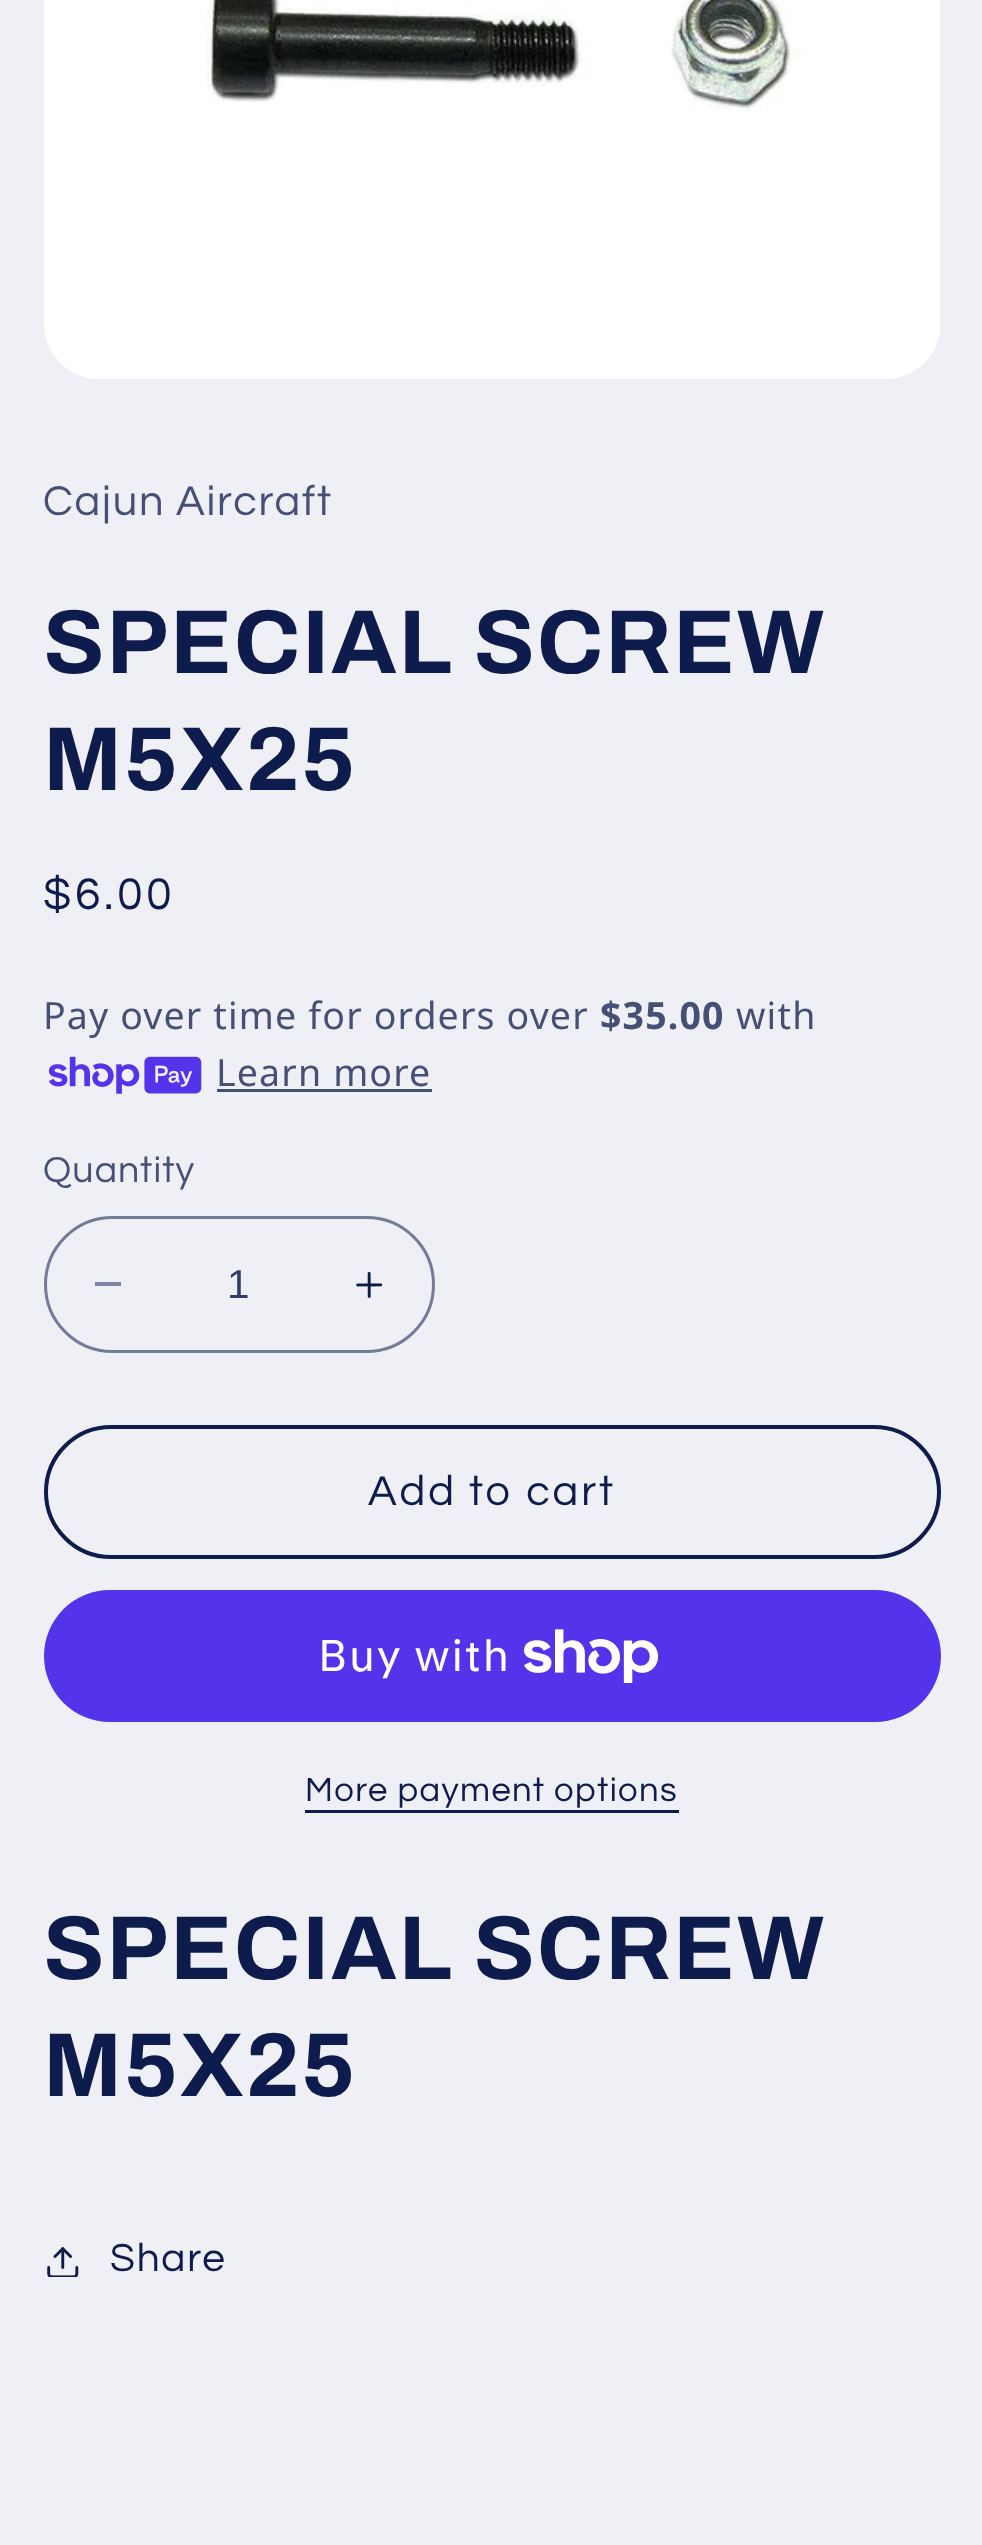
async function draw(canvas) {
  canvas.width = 982;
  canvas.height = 2545;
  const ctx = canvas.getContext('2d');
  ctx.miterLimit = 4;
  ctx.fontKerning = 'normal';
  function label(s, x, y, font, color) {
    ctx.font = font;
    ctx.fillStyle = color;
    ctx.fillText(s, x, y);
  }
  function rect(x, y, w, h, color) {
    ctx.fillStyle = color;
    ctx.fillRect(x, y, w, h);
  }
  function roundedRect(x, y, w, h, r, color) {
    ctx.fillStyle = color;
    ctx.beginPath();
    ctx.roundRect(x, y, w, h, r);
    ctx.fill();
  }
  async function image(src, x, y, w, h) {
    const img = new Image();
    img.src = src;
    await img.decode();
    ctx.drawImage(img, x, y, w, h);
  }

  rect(0, 0, 982, 2545, '#eff0f5');
  await image('assets/img1.png', 44, 0, 897, 379);
  ctx.letterSpacing = '1.75px';
  label('Cajun Aircraft', 43, 515, '43.25px Questrial', '#465077');
  label('SPECIAL SCREW', 43, 673, 'bold 90.75px Archivo', '#0e1b4d');
  label('M5X25', 43, 790, 'bold 90.75px Archivo', '#0e1b4d');
  ctx.letterSpacing = '3.75px';
  label('$6.00', 43, 909, '46px Questrial', '#0e1b4d');
  ctx.letterSpacing = '1.15px';
  label('Pay over time for orders over', 43, 1029, '37.5px Noto Sans', '#465077');
  label('$35.00', 600, 1029, 'bold 37.5px Noto Sans', '#465077');
  label('with', 736, 1029, '37.5px Noto Sans', '#465077');
  await image('assets/img2.png', 48, 1056, 154, 38);
  label('Learn more', 216, 1086, '37.5px Noto Sans', '#465077');
  rect(217, 1089, 215, 3, '#465077');
  label('Quantity', 43, 1182, '37.5px Questrial', '#465077');
  rect(95, 1282, 26, 4, '#7f86a1');
  await image('assets/img3.png', 356, 1271, 27, 27);
  ctx.beginPath();
  ctx.roundRect(45.5, 1217.5, 388, 134, 67);
  ctx.strokeStyle = '#737b99';
  ctx.lineWidth = 3;
  ctx.stroke();
  ctx.letterSpacing = '0px';
  label('1', 227, 1298, '40.5px Liberation Sans', '#303b66');
  ctx.beginPath();
  ctx.roundRect(46, 1427, 893, 130, 65);
  ctx.strokeStyle = '#0e1b4d';
  ctx.lineWidth = 4;
  ctx.stroke();
  ctx.letterSpacing = '2.9px';
  label('Add to cart', 368, 1505, '43.25px Questrial', '#0e1b4d');
  roundedRect(44, 1590, 897, 132, 66, '#5433eb');
  ctx.letterSpacing = '1.75px';
  label('Buy with', 318, 1671, '44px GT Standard', '#fff');
  await image('assets/img4.png', 524, 1629, 135, 54);
  ctx.letterSpacing = '1.4px';
  label('More payment options', 305, 1801, '34.6px Questrial', '#0e1b4d');
  rect(305, 1810, 374, 3, '#0e1b4d');
  ctx.letterSpacing = '1.75px';
  label('SPECIAL SCREW', 43, 1979, 'bold 90.75px Archivo', '#0e1b4d');
  label('M5X25', 43, 2096, 'bold 90.75px Archivo', '#0e1b4d');
  await image('assets/img5.png', 47, 2247, 32, 30);
  label('Share', 110, 2271, '40.5px Questrial', '#0e1b4d');
}

draw(document.querySelector('canvas'));
